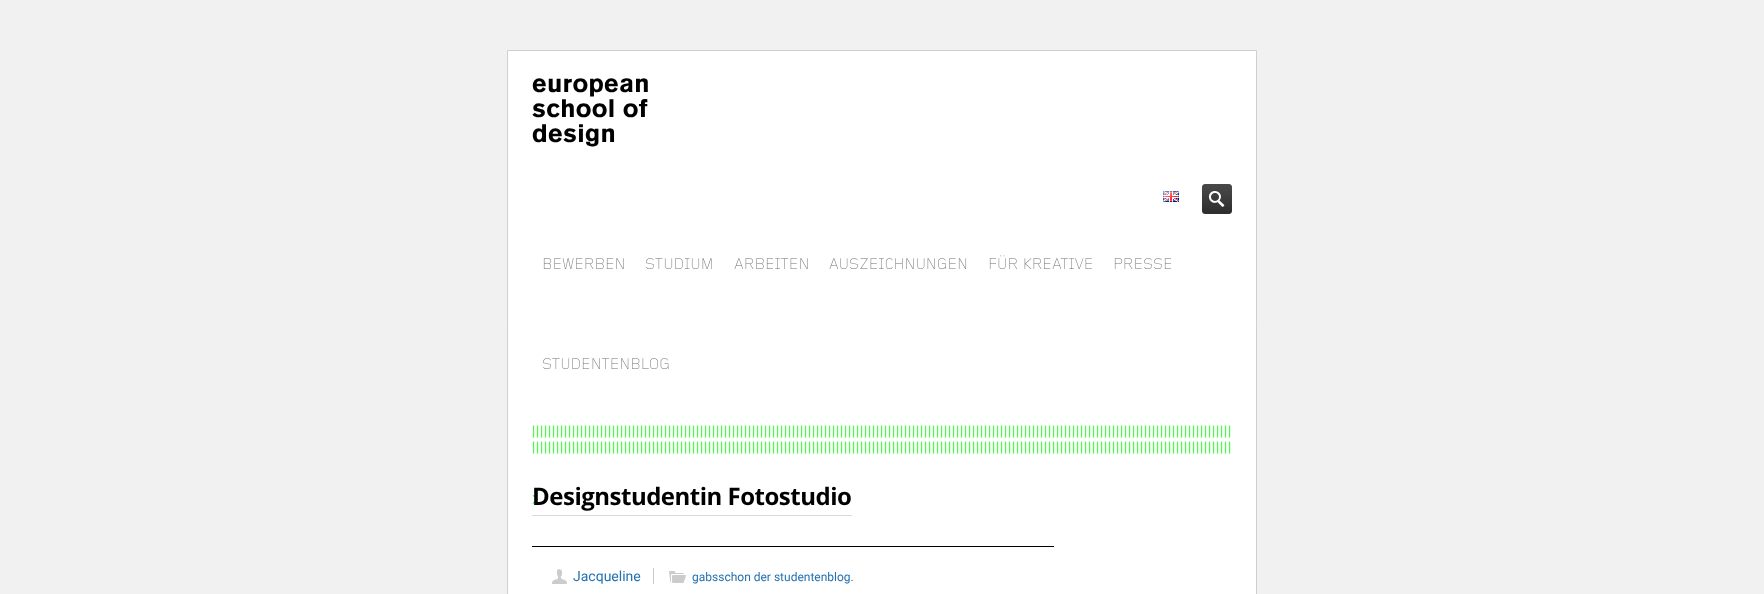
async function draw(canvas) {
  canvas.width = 1764;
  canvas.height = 594;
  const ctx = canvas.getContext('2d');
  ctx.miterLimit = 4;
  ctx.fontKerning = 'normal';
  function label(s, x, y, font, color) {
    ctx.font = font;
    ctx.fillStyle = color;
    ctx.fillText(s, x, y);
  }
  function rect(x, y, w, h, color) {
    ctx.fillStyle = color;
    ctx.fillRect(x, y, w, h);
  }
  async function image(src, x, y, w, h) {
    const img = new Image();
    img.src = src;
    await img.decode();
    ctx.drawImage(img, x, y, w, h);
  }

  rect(0, 0, 1764, 594, '#f1f1f1');
  ctx.fillStyle = '#fff';
  ctx.beginPath();
  ctx.rect(507.5, 50.5, 749, 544);
  ctx.fill();
  ctx.strokeStyle = '#ccd0d4';
  ctx.stroke();
  ctx.letterSpacing = '0.25px';
  label('european', 532, 92, '900 25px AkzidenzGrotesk', '#000');
  label('school of', 532, 117, '900 25px AkzidenzGrotesk', '#000');
  label('design', 532, 142, '900 25px AkzidenzGrotesk', '#000');
  await image('assets/img1.png', 1163, 191, 16, 11);
  await image('assets/img2.png', 1202, 184, 30, 30);
  ctx.letterSpacing = '0px';
  label('BEWERBEN', 542, 269, '300 16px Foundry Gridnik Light', '#6d6f72');
  label('STUDIUM', 645, 269, '300 16px Foundry Gridnik Light', '#6d6f72');
  label('ARBEITEN', 734, 269, '300 16px Foundry Gridnik Light', '#6d6f72');
  label('AUSZEICHNUNGEN', 829, 269, '300 16px Foundry Gridnik Light', '#6d6f72');
  label('FÜR KREATIVE', 988, 269, '300 16px Foundry Gridnik Light', '#6d6f72');
  label('PRESSE', 1113, 269, '300 16px Foundry Gridnik Light', '#6d6f72');
  label('STUDENTENBLOG', 542, 369, '300 16px Foundry Gridnik Light', '#6d6f72');
  await image('assets/img3.png', 533, 425, 698, 29);
  await image('assets/img4.png', 532, 495, 6, 9);
  rect(532, 515, 320, 1, '#dadada');
  ctx.letterSpacing = '-0.5px';
  label('Designstudentin Fotostudio', 532, 505, 'bold 24px Open Sans', '#000');
  rect(532, 546, 522, 1, '#000');
  await image('assets/img5.png', 552, 569, 15, 15);
  ctx.letterSpacing = '0px';
  label('Jacqueline', 573, 581, '14px Roboto', '#2271b1');
  rect(653, 568, 1, 16, '#ccc');
  await image('assets/img6.png', 669, 571, 17, 12);
  label('gabsschon der studentenblog.', 692, 581, '12px Roboto', '#2271b1');
}

draw(document.querySelector('canvas'));
